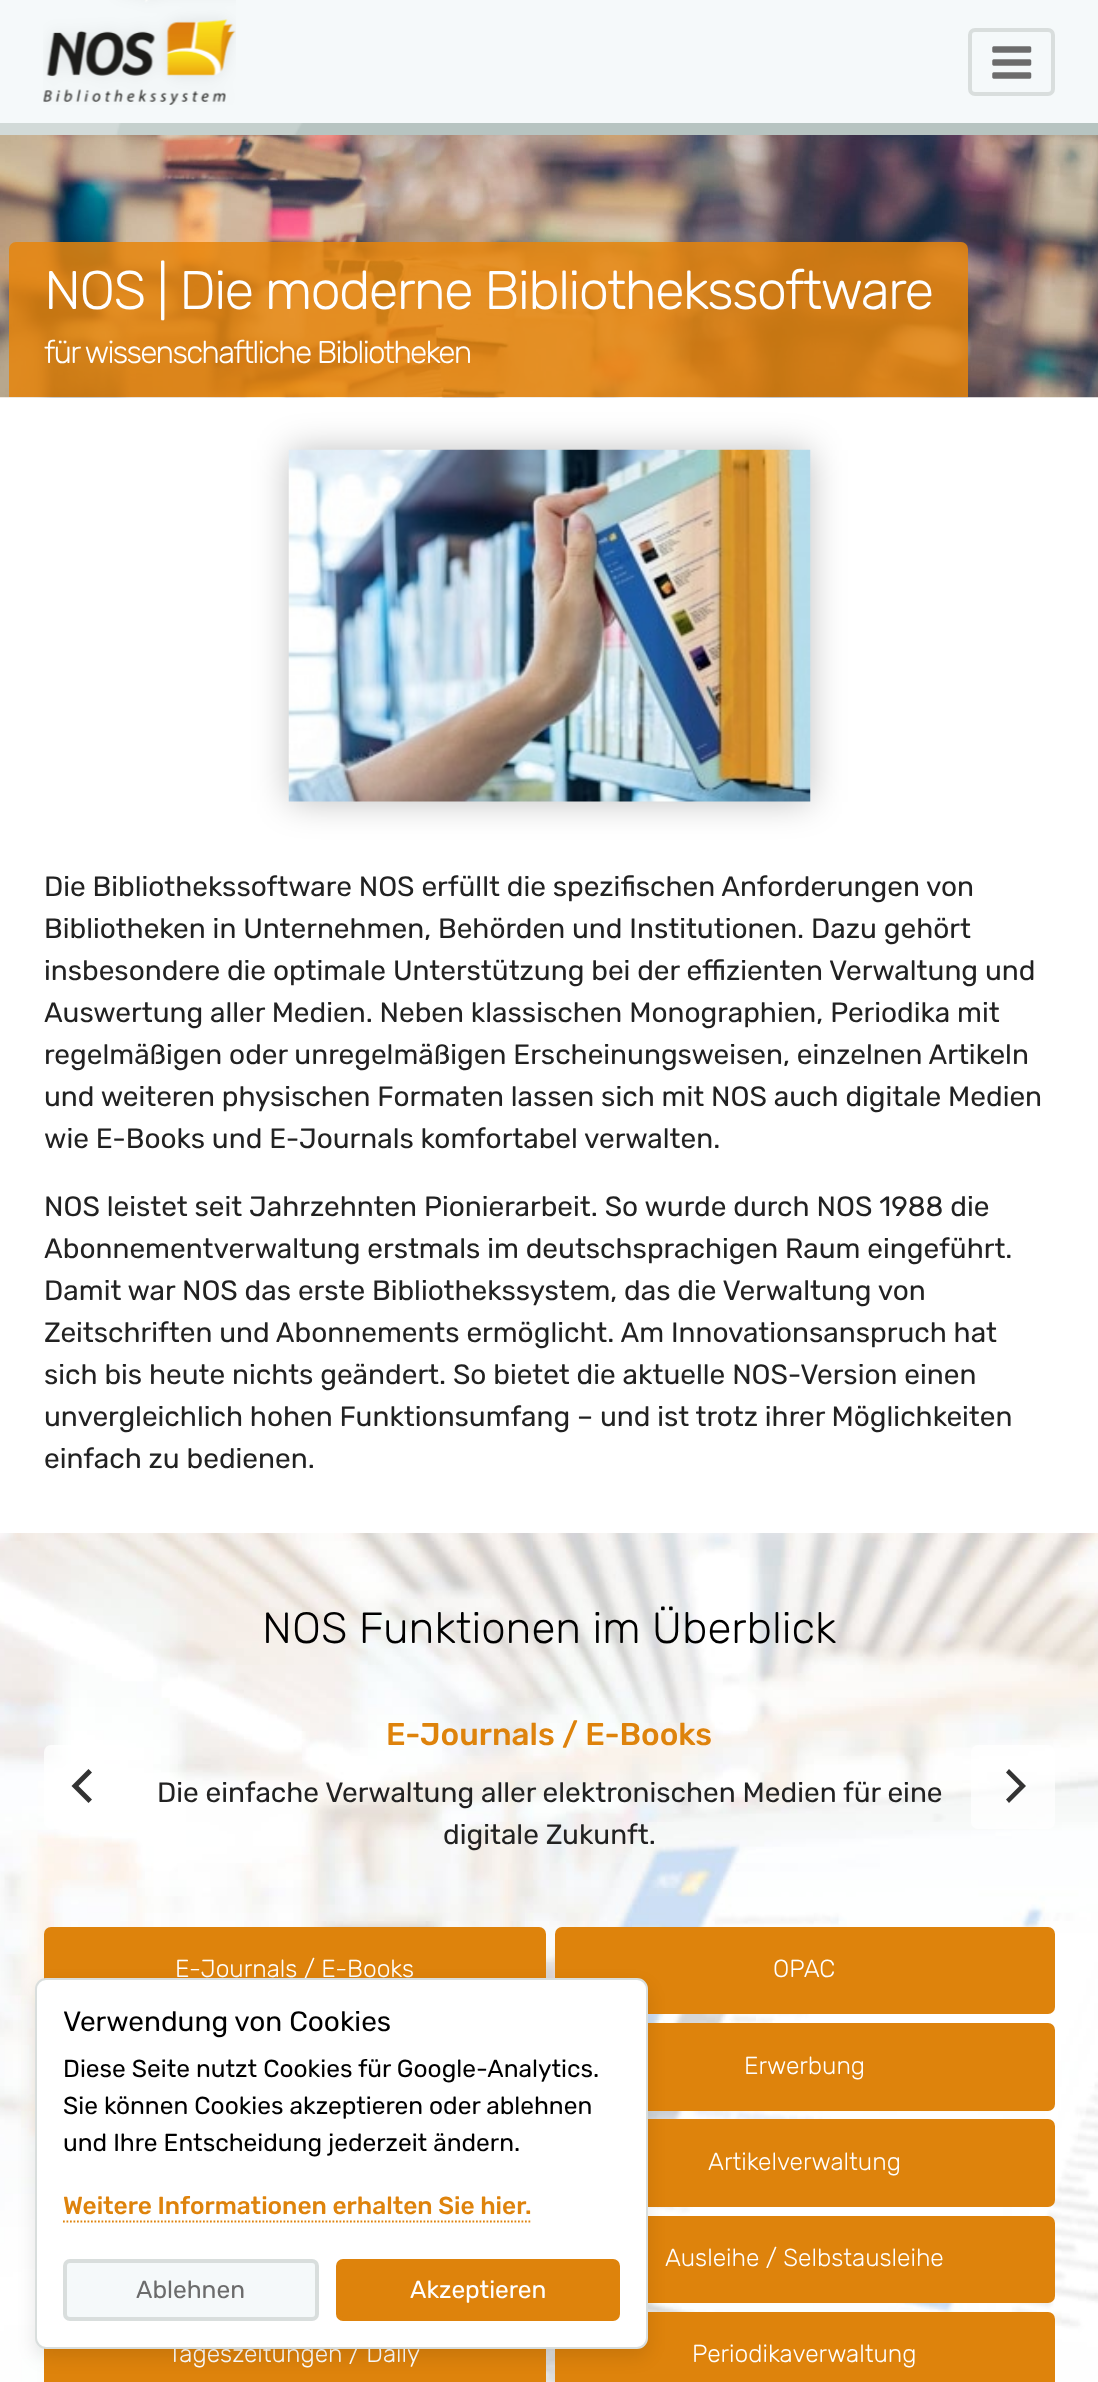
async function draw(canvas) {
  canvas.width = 1098;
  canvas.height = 2382;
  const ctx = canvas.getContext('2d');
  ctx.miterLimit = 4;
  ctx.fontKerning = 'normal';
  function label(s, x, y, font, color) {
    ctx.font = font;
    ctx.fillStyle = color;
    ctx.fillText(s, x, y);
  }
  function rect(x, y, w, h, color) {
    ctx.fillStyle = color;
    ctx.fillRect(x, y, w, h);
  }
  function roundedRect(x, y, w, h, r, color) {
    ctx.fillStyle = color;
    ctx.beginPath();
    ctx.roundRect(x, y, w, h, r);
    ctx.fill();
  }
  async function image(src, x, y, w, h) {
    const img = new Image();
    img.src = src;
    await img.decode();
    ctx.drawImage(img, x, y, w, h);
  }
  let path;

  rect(0, 0, 1098, 2382, '#fff');
  rect(0, 0, 1098, 123, '#f5f9fa');
  await image('assets/img1.png', 43, 0, 193, 105);
  ctx.beginPath();
  ctx.roundRect(970, 30, 83, 64, 5);
  ctx.strokeStyle = '#d9dedd';
  ctx.lineWidth = 4;
  ctx.stroke();
  await image('assets/img2.png', 992, 46, 40, 33);
  await image('assets/img3.png', 0, 123, 1098, 12);
  await image('assets/img4.png', 0, 135, 1098, 263);
  ctx.fillStyle = '#e6850cd9';
  ctx.beginPath();
  ctx.roundRect(9, 242, 959, 155, [7, 7, 0, 0]);
  ctx.fill();
  ctx.letterSpacing = '-1.75px';
  label('NOS | Die moderne Bibliothekssoftware', 44, 309, '300 54.25px Rubik', '#fff');
  label('für wissenschaftliche Bibliotheken', 44, 363, '300 31.5px Rubik', '#fff');
  ctx.fillStyle = '#00000040';
  ctx.filter = 'blur(17.5px)';
  ctx.beginPath();
  ctx.rect(289, 450, 521, 352);
  ctx.fill();
  ctx.filter = 'none';
  await image('assets/img5.png', 288, 449, 523, 353);
  ctx.letterSpacing = '0px';
  label('Die Bibliothekssoftware NOS erfüllt die spezifischen Anforderungen von', 44, 896, '28px Rubik', '#222');
  label('Bibliotheken in Unternehmen, Behörden und Institutionen. Dazu gehört', 44, 938, '28px Rubik', '#222');
  label('insbesondere die optimale Unterstützung bei der effizienten Verwaltung und', 44, 980, '28px Rubik', '#222');
  label('Auswertung aller Medien. Neben klassischen Monographien, Periodika mit', 44, 1022, '28px Rubik', '#222');
  label('regelmäßigen oder unregelmäßigen Erscheinungsweisen, einzelnen Artikeln', 44, 1064, '28px Rubik', '#222');
  label('und weiteren physischen Formaten lassen sich mit NOS auch digitale Medien', 44, 1106, '28px Rubik', '#222');
  label('wie E-Books und E-Journals komfortabel verwalten.', 44, 1148, '28px Rubik', '#222');
  label('NOS leistet seit Jahrzehnten Pionierarbeit. So wurde durch NOS 1988 die', 44, 1216, '28px Rubik', '#222');
  label('Abonnementverwaltung erstmals im deutschsprachigen Raum eingeführt.', 44, 1258, '28px Rubik', '#222');
  label('Damit war NOS das erste Bibliothekssystem, das die Verwaltung von', 44, 1300, '28px Rubik', '#222');
  label('Zeitschriften und Abonnements ermöglicht. Am Innovationsanspruch hat', 44, 1342, '28px Rubik', '#222');
  label('sich bis heute nichts geändert. So bietet die aktuelle NOS-Version einen', 44, 1384, '28px Rubik', '#222');
  label('unvergleichlich hohen Funktionsumfang – und ist trotz ihrer Möglichkeiten', 44, 1426, '28px Rubik', '#222');
  label('einfach zu bedienen.', 44, 1468, '28px Rubik', '#222');
  await image('assets/img6.png', 0, 1533, 1098, 849);
  label('NOS Funktionen im Überblick', 262, 1643, '300 43.75px Rubik', '#000');
  roundedRect(44, 1745, 84, 84, 7, '#ffffffbf');
  ctx.fillStyle = '#333';
  path = new Path2D('M71.5 1786L88.5 1803L92 1799.5L78.5 1786L92 1772.5L88.5 1769Z');
  ctx.fill(path);
  label('E-Journals / E-Books', 386, 1745, '500 31.5px Rubik', '#de830c');
  label('Die einfache Verwaltung aller elektronischen Medien für eine', 157, 1802, '28px Rubik', '#222');
  label('digitale Zukunft.', 443, 1844, '28px Rubik', '#222');
  roundedRect(971, 1745, 84, 84, 7, '#ffffffbf');
  ctx.fillStyle = '#333';
  path = new Path2D('M1026 1786L1009 1769L1006 1772.5L1019.5 1786L1006 1799.5L1009 1803Z');
  ctx.fill(path);
  roundedRect(44, 1927, 502, 87, 7, '#de830c');
  label('E-Journals / E-Books', 175, 1977, '300 24.5px Rubik', '#fff');
  roundedRect(555, 1927, 500, 87, 7, '#de830c');
  label('OPAC', 773, 1977, '300 24.5px Rubik', '#fff');
  roundedRect(555, 2023, 500, 88, 7, '#de830c');
  label('Erwerbung', 744, 2074, '300 24.5px Rubik', '#fff');
  roundedRect(555, 2119, 500, 88, 7, '#de830c');
  label('Artikelverwaltung', 708, 2170, '300 24.5px Rubik', '#fff');
  roundedRect(555, 2216, 500, 87, 7, '#de830c');
  label('Ausleihe / Selbstausleihe', 665, 2266, '300 24.5px Rubik', '#fff');
  rect(44, 2348, 502, 34, '#de830c');
  label('Tageszeitungen / Daily', 168, 2362, '300 24.5px Rubik', '#fff');
  roundedRect(555, 2312, 500, 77, 7, '#de830c');
  label('Periodikaverwaltung', 692, 2362, '300 24.5px Rubik', '#fff');
  ctx.fillStyle = '#0000001a';
  ctx.filter = 'blur(9px)';
  ctx.beginPath();
  ctx.roundRect(35, 1986, 613, 371, 11);
  ctx.fill();
  ctx.filter = 'none';
  ctx.fillStyle = '#fff';
  ctx.beginPath();
  ctx.roundRect(36, 1979, 611, 369, 10);
  ctx.fill();
  ctx.lineWidth = 2;
  ctx.stroke();
  label('Verwendung von Cookies', 63, 2031, '28px Rubik', '#000');
  label('Diese Seite nutzt Cookies für Google-Analytics.', 63, 2077, '24.5px Rubik', '#000');
  label('Sie können Cookies akzeptieren oder ablehnen', 63, 2114, '24.5px Rubik', '#000');
  label('und Ihre Entscheidung jederzeit ändern.', 63, 2151, '24.5px Rubik', '#000');
  label('Weitere Informationen erhalten Sie hier.', 63, 2214, '500 24.5px Rubik', '#de830c');
  path = new Path2D('M63 2221.5H532');
  ctx.strokeStyle = '#de830c';
  ctx.lineWidth = 1.8;
  ctx.setLineDash([1.75, 1.75]);
  ctx.stroke(path);
  ctx.fillStyle = '#f5f9fa';
  ctx.beginPath();
  ctx.roundRect(65, 2261, 252, 58, 5);
  ctx.fill();
  ctx.strokeStyle = '#d9dedd';
  ctx.lineWidth = 4;
  ctx.setLineDash([]);
  ctx.stroke();
  label('Ablehnen', 136, 2298, '24.5px Rubik', '#6c6c6c');
  ctx.fillStyle = '#de830c';
  ctx.beginPath();
  ctx.roundRect(338, 2261, 280, 58, 5);
  ctx.fill();
  ctx.strokeStyle = '#de830c';
  ctx.stroke();
  label('Akzeptieren', 410, 2298, '24.5px Rubik', '#fff');
}

draw(document.querySelector('canvas'));
